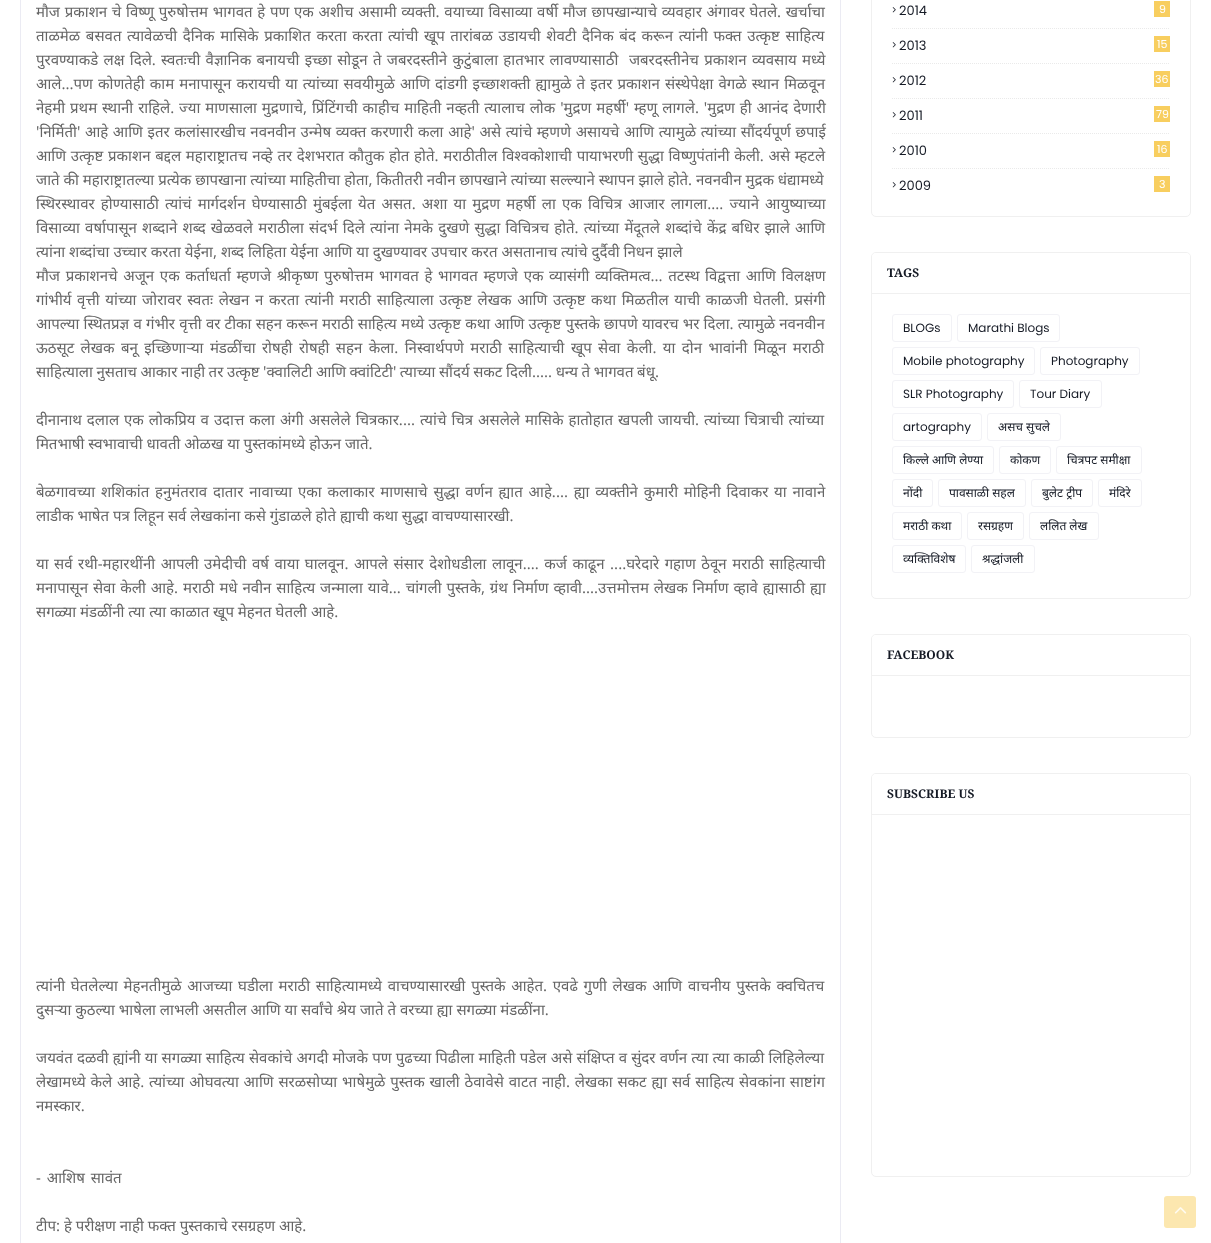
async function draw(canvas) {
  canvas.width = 1211;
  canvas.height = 1243;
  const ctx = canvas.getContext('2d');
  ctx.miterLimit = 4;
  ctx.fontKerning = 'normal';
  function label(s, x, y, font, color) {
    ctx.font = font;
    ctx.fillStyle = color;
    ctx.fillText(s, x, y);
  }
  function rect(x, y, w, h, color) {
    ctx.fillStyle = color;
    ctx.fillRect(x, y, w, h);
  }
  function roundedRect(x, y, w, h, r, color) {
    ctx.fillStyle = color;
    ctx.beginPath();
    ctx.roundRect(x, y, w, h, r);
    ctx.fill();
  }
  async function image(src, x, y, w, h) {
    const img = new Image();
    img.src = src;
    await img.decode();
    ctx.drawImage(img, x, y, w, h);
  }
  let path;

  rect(0, 0, 1211, 1243, '#fff');
  ctx.strokeStyle = '#ebebf3';
  ctx.strokeRect(20.5, -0.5, 820, 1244);
  ctx.wordSpacing = '0.8px';
  label('मौज प्रकाशन चे विष्णू पुरुषोत्तम भागवत हे पण एक अशीच असामी व्यक्ती. वयाच्या विसाव्या वर्षी मौज छापखान्याचे व्यवहार अंगावर घेतले. खर्चाचा', 36, 17, '15px Noto Sans', '#656565');
  ctx.wordSpacing = '1.75px';
  label('ताळमेळ बसवत त्यावेळची दैनिक मासिके प्रकाशित करता करता त्यांची खूप तारांबळ उडायची शेवटी दैनिक बंद करून त्यांनी फक्त उत्कृष्ट साहित्य', 36, 41, '15px Noto Sans', '#656565');
  ctx.wordSpacing = '1.4px';
  label('पुरवण्याकडे लक्ष दिले. स्वतःची वैज्ञानिक बनायची इच्छा सोडून ते जबरदस्तीने कुटुंबाला हातभार लावण्यासाठी  जबरदस्तीनेच प्रकाशन व्यवसाय मध्ये', 36, 65, '15px Noto Sans', '#656565');
  ctx.wordSpacing = '1.2px';
  label('आले...पण कोणतेही काम मनापासून करायची या त्यांच्या सवयीमुळे आणि दांडगी इच्छाशक्ती ह्यामुळे ते इतर प्रकाशन संस्थेपेक्षा वेगळे स्थान मिळवून', 36, 89, '15px Noto Sans', '#656565');
  ctx.wordSpacing = '1px';
  label('नेहमी प्रथम स्थानी राहिले. ज्या माणसाला मुद्रणाचे, प्रिंटिंगची काहीच माहिती नव्हती त्यालाच लोक \'मुद्रण महर्षी\' म्हणू लागले. \'मुद्रण ही आनंद देणारी', 36, 113, '15px Noto Sans', '#656565');
  ctx.wordSpacing = '0.75px';
  label('\'निर्मिती\' आहे आणि इतर कलांसारखीच नवनवीन उन्मेष व्यक्त करणारी कला आहे\' असे त्यांचे म्हणणे असायचे आणि त्यामुळे त्यांच्या सौंदर्यपूर्ण छपाई', 36, 137, '15px Noto Sans', '#656565');
  ctx.wordSpacing = '0.8px';
  label('आणि उत्कृष्ट प्रकाशन बद्दल महाराष्ट्रातच नव्हे तर देशभरात कौतुक होत होते. मराठीतील विश्वकोशाची पायाभरणी सुद्धा विष्णुपंतांनी केली. असे म्हटले', 36, 161, '15px Noto Sans', '#656565');
  ctx.wordSpacing = '0px';
  label('जाते की महाराष्ट्रातल्या प्रत्येक छापखाना त्यांच्या माहितीचा होता, कितीतरी नवीन छापखाने त्यांच्या सल्ल्याने स्थापन झाले होते. नवनवीन मुद्रक धंद्यामध्ये', 36, 185, '15px Noto Sans', '#656565');
  ctx.wordSpacing = '2.25px';
  label('स्थिरस्थावर होण्यासाठी त्यांचं मार्गदर्शन घेण्यासाठी मुंबईला येत असत. अशा या मुद्रण महर्षी ला एक विचित्र आजार लागला.... ज्याने आयुष्याच्या', 36, 209, '15px Noto Sans', '#656565');
  ctx.wordSpacing = '1.25px';
  label('विसाव्या वर्षापासून शब्दाने शब्द खेळवले मराठीला संदर्भ दिले त्यांना नेमके दुखणे सुद्धा विचित्रच होते. त्यांच्या मेंदूतले शब्दांचे केंद्र बधिर झाले आणि', 36, 233, '15px Noto Sans', '#656565');
  ctx.wordSpacing = '0px';
  label('त्यांना शब्दांचा उच्चार करता येईना, शब्द लिहिता येईना आणि या दुखण्यावर उपचार करत असतानाच त्यांचे दुर्दैवी निधन झाले', 36, 257, '15px Noto Sans', '#656565');
  ctx.wordSpacing = '1.75px';
  label('मौज प्रकाशनचे अजून एक कर्ताधर्ता म्हणजे श्रीकृष्ण पुरुषोत्तम भागवत हे भागवत म्हणजे एक व्यासंगी व्यक्तिमत्व... तटस्थ विद्वत्ता आणि विलक्षण', 36, 281, '15px Noto Sans', '#656565');
  label('गांभीर्य वृत्ती यांच्या जोरावर स्वतः लेखन न करता त्यांनी मराठी साहित्याला उत्कृष्ट लेखक आणि उत्कृष्ट कथा मिळतील याची काळजी घेतली. प्रसंगी', 36, 305, '15px Noto Sans', '#656565');
  ctx.wordSpacing = '0.3px';
  label('आपल्या स्थितप्रज्ञ व गंभीर वृत्ती वर टीका सहन करून मराठी साहित्य मध्ये उत्कृष्ट कथा आणि उत्कृष्ट पुस्तके छापणे यावरच भर दिला. त्यामुळे नवनवीन', 36, 329, '15px Noto Sans', '#656565');
  ctx.wordSpacing = '2.5px';
  label('ऊठसूट लेखक बनू इच्छिणाऱ्या मंडळींचा रोषही रोषही सहन केला. निस्वार्थपणे मराठी साहित्याची खूप सेवा केली. या दोन भावांनी मिळून मराठी', 36, 353, '15px Noto Sans', '#656565');
  ctx.wordSpacing = '-0.3px';
  label('साहित्याला नुसताच आकार नाही तर उत्कृष्ट \'क्वालिटी आणि क्वांटिटी\' त्याच्या सौंदर्य सकट दिली..... धन्य ते भागवत बंधू.', 36, 377, '15px Noto Sans', '#656565');
  ctx.wordSpacing = '1.1px';
  label('दीनानाथ दलाल एक लोकप्रिय व उदात्त कला अंगी असलेले चित्रकार.... त्यांचे चित्र असलेले मासिके हातोहात खपली जायची. त्यांच्या चित्राची त्यांच्या', 36, 425, '15px Noto Sans', '#656565');
  ctx.wordSpacing = '0px';
  label('मितभाषी स्वभावाची धावती ओळख या पुस्तकांमध्ये होऊन जाते.', 36, 449, '15px Noto Sans', '#656565');
  ctx.wordSpacing = '1.9px';
  label('बेळगावच्या शशिकांत हनुमंतराव दातार नावाच्या एका कलाकार माणसाचे सुद्धा वर्णन ह्यात आहे.... ह्या व्यक्तीने कुमारी मोहिनी दिवाकर या नावाने', 36, 497, '15px Noto Sans', '#656565');
  ctx.wordSpacing = '0px';
  label('लाडीक भाषेत पत्र लिहून सर्व लेखकांना कसे गुंडाळले होते ह्याची कथा सुद्धा वाचण्यासारखी.', 36, 521, '15px Noto Sans', '#656565');
  ctx.wordSpacing = '1.6px';
  label('या सर्व रथी-महारथींनी आपली उमेदीची वर्ष वाया घालवून. आपले संसार देशोधडीला लावून.... कर्ज काढून ....घरेदारे गहाण ठेवून मराठी साहित्याची', 36, 569, '15px Noto Sans', '#656565');
  ctx.wordSpacing = '1px';
  label('मनापासून सेवा केली आहे. मराठी मधे नवीन साहित्य जन्माला यावे... चांगली पुस्तके, ग्रंथ निर्माण व्हावी....उत्तमोत्तम लेखक निर्माण व्हावे ह्यासाठी ह्या', 36, 593, '15px Noto Sans', '#656565');
  ctx.wordSpacing = '0px';
  label('सगळ्या मंडळींनी त्या त्या काळात खूप मेहनत घेतली आहे.', 36, 617, '15px Noto Sans', '#656565');
  ctx.wordSpacing = '1.8px';
  label('त्यांनी घेतलेल्या मेहनतीमुळे आजच्या घडीला मराठी साहित्यामध्ये वाचण्यासारखी पुस्तके आहेत. एवढे गुणी लेखक आणि वाचनीय पुस्तके क्वचितच', 36, 991, '15px Noto Sans', '#656565');
  ctx.wordSpacing = '0px';
  label('दुसऱ्या कुठल्या भाषेला लाभली असतील आणि या सर्वांचे श्रेय जाते ते वरच्या ह्या सगळ्या मंडळींना.', 36, 1015, '15px Noto Sans', '#656565');
  ctx.wordSpacing = '0.3px';
  label('जयवंत दळवी ह्यांनी या सगळ्या साहित्य सेवकांचे अगदी मोजके पण पुढच्या पिढीला माहिती पडेल असे संक्षिप्त व सुंदर वर्णन त्या त्या काळी लिहिलेल्या', 36, 1063, '15px Noto Sans', '#656565');
  ctx.wordSpacing = '0.9px';
  label('लेखामध्ये केले आहे. त्यांच्या ओघवत्या आणि सरळसोप्या भाषेमुळे पुस्तक खाली ठेवावेसे वाटत नाही. लेखका सकट ह्या सर्व साहित्य सेवकांना साष्टांग', 36, 1087, '15px Noto Sans', '#656565');
  ctx.wordSpacing = '0px';
  label('नमस्कार.', 36, 1111, '15px Noto Sans', '#656565');
  ctx.wordSpacing = '2px';
  label('- आशिष सावंत', 36, 1183, '15px Noto Sans', '#656565');
  ctx.wordSpacing = '0px';
  label('टीप: हे परीक्षण नाही फक्त पुस्तकाचे रसग्रहण आहे.', 36, 1231, '15px Noto Sans', '#656565');
  ctx.beginPath();
  ctx.roundRect(871.5, -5.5, 319, 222, 4.5);
  ctx.strokeStyle = '#f0f0f0';
  ctx.stroke();
  path = new Path2D('M892 28.5H1170');
  ctx.strokeStyle = '#eaeaea';
  ctx.setLineDash([1, 1]);
  ctx.stroke(path);
  await image('assets/img1.png', 892, 7, 4, 6);
  label('2014', 899, 15, '13px Poppins', '#151a25');
  rect(1154, 1, 16, 16, '#f8ce5f');
  label('9', 1159, 13, '11px Poppins', '#fff');
  path = new Path2D('M892 63.5H1170');
  ctx.stroke(path);
  await image('assets/img1.png', 892, 42, 4, 6);
  label('2013', 899, 50, '13px Poppins', '#151a25');
  rect(1154, 36, 16, 16, '#f8ce5f');
  label('15', 1157, 48, '11px Poppins', '#fff');
  path = new Path2D('M892 98.5H1170');
  ctx.stroke(path);
  await image('assets/img1.png', 892, 77, 4, 6);
  label('2012', 899, 85, '13px Poppins', '#151a25');
  rect(1154, 71, 16, 16, '#f8ce5f');
  label('36', 1155, 83, '11px Poppins', '#fff');
  path = new Path2D('M892 133.5H1170');
  ctx.stroke(path);
  await image('assets/img1.png', 892, 112, 4, 6);
  label('2011', 899, 120, '13px Poppins', '#151a25');
  rect(1154, 106, 16, 16, '#f8ce5f');
  label('79', 1156, 118, '11px Poppins', '#fff');
  path = new Path2D('M892 168.5H1170');
  ctx.stroke(path);
  await image('assets/img1.png', 892, 147, 4, 6);
  label('2010', 899, 155, '13px Poppins', '#151a25');
  rect(1154, 141, 16, 16, '#f8ce5f');
  label('16', 1157, 153, '11px Poppins', '#fff');
  await image('assets/img1.png', 892, 182, 4, 6);
  label('2009', 899, 190, '13px Poppins', '#151a25');
  rect(1154, 176, 16, 16, '#f8ce5f');
  label('3', 1159, 188, '11px Poppins', '#fff');
  ctx.beginPath();
  ctx.roundRect(871.5, 252.5, 319, 346, 4.5);
  ctx.strokeStyle = '#f0f0f0';
  ctx.setLineDash([]);
  ctx.stroke();
  ctx.beginPath();
  ctx.roundRect(872, 253, 318, 41, [4, 4, 0, 0]);
  ctx.fill();
  rect(872, 293, 318, 1, '#f0f0f0');
  label('TAGS', 887, 277, 'bold 12px Noto Serif', '#151a25');
  ctx.beginPath();
  ctx.roundRect(892.5, 314.5, 59, 27, 2.5);
  ctx.strokeStyle = '#f2f2f6';
  ctx.stroke();
  label('BLOGs', 903, 332, '12px Poppins', '#151a25');
  ctx.beginPath();
  ctx.roundRect(957.5, 314.5, 102, 27, 2.5);
  ctx.stroke();
  label('Marathi Blogs', 968, 332, '12px Poppins', '#151a25');
  ctx.beginPath();
  ctx.roundRect(892.5, 347.5, 142, 27, 2.5);
  ctx.stroke();
  label('Mobile photography', 903, 365, '12px Poppins', '#151a25');
  ctx.beginPath();
  ctx.roundRect(1040.5, 347.5, 99, 27, 2.5);
  ctx.stroke();
  label('Photography', 1051, 365, '12px Poppins', '#151a25');
  ctx.beginPath();
  ctx.roundRect(892.5, 380.5, 121, 27, 2.5);
  ctx.stroke();
  label('SLR Photography', 903, 398, '12px Poppins', '#151a25');
  ctx.beginPath();
  ctx.roundRect(1019.5, 380.5, 82, 27, 2.5);
  ctx.stroke();
  label('Tour Diary', 1030, 398, '12px Poppins', '#151a25');
  ctx.beginPath();
  ctx.roundRect(892.5, 413.5, 89, 27, 2.5);
  ctx.stroke();
  label('artography', 903, 431, '12px Poppins', '#151a25');
  ctx.beginPath();
  ctx.roundRect(987.5, 413.5, 73, 27, 2.5);
  ctx.stroke();
  label('असच सुचले', 998, 431, '12px Noto Sans', '#151a25');
  ctx.beginPath();
  ctx.roundRect(892.5, 446.5, 101, 27, 2.5);
  ctx.stroke();
  label('किल्ले आणि लेण्या', 903, 464, '12px Noto Sans', '#151a25');
  ctx.beginPath();
  ctx.roundRect(999.5, 446.5, 51, 27, 2.5);
  ctx.stroke();
  label('कोकण', 1010, 464, '12px Noto Sans', '#151a25');
  ctx.beginPath();
  ctx.roundRect(1056.5, 446.5, 85, 27, 2.5);
  ctx.stroke();
  label('चित्रपट समीक्षा', 1067, 464, '12px Noto Sans', '#151a25');
  ctx.beginPath();
  ctx.roundRect(892.5, 479.5, 40, 27, 2.5);
  ctx.stroke();
  label('नोंदी', 903, 497, '12px Noto Sans', '#151a25');
  ctx.beginPath();
  ctx.roundRect(938.5, 479.5, 87, 27, 2.5);
  ctx.stroke();
  label('पावसाळी सहल', 949, 497, '12px Noto Sans', '#151a25');
  ctx.beginPath();
  ctx.roundRect(1031.5, 479.5, 61, 27, 2.5);
  ctx.stroke();
  label('बुलेट ट्रीप', 1042, 497, '12px Noto Sans', '#151a25');
  ctx.beginPath();
  ctx.roundRect(1098.5, 479.5, 43, 27, 2.5);
  ctx.stroke();
  label('मंदिरे', 1109, 497, '12px Noto Sans', '#151a25');
  ctx.beginPath();
  ctx.roundRect(892.5, 512.5, 69, 27, 2.5);
  ctx.stroke();
  label('मराठी कथा', 903, 530, '12px Noto Sans', '#151a25');
  ctx.beginPath();
  ctx.roundRect(967.5, 512.5, 56, 27, 2.5);
  ctx.stroke();
  label('रसग्रहण', 978, 530, '12px Noto Sans', '#151a25');
  ctx.beginPath();
  ctx.roundRect(1029.5, 512.5, 69, 27, 2.5);
  ctx.stroke();
  label('ललित लेख', 1040, 530, '12px Noto Sans', '#151a25');
  ctx.beginPath();
  ctx.roundRect(892.5, 545.5, 73, 27, 2.5);
  ctx.stroke();
  label('व्यक्तिविशेष', 903, 563, '12px Noto Sans', '#151a25');
  ctx.beginPath();
  ctx.roundRect(971.5, 545.5, 63, 27, 2.5);
  ctx.stroke();
  label('श्रद्धांजली', 982, 563, '12px Noto Sans', '#151a25');
  ctx.beginPath();
  ctx.roundRect(871.5, 634.5, 319, 103, 4.5);
  ctx.strokeStyle = '#f0f0f0';
  ctx.stroke();
  ctx.fillStyle = '#fff';
  ctx.beginPath();
  ctx.roundRect(872, 635, 318, 41, [4, 4, 0, 0]);
  ctx.fill();
  rect(872, 675, 318, 1, '#f0f0f0');
  label('FACEBOOK', 887, 659, 'bold 12px Noto Serif', '#151a25');
  ctx.beginPath();
  ctx.roundRect(871.5, 773.5, 319, 403, 4.5);
  ctx.stroke();
  ctx.fillStyle = '#fff';
  ctx.beginPath();
  ctx.roundRect(872, 774, 318, 41, [4, 4, 0, 0]);
  ctx.fill();
  rect(872, 814, 318, 1, '#f0f0f0');
  label('SUBSCRIBE US', 887, 798, 'bold 12px Noto Serif', '#151a25');
  roundedRect(1164, 1196, 32, 32, 3, '#fce7af');
  await image('assets/img2.png', 1174, 1207, 13, 7);
}

draw(document.querySelector('canvas'));
